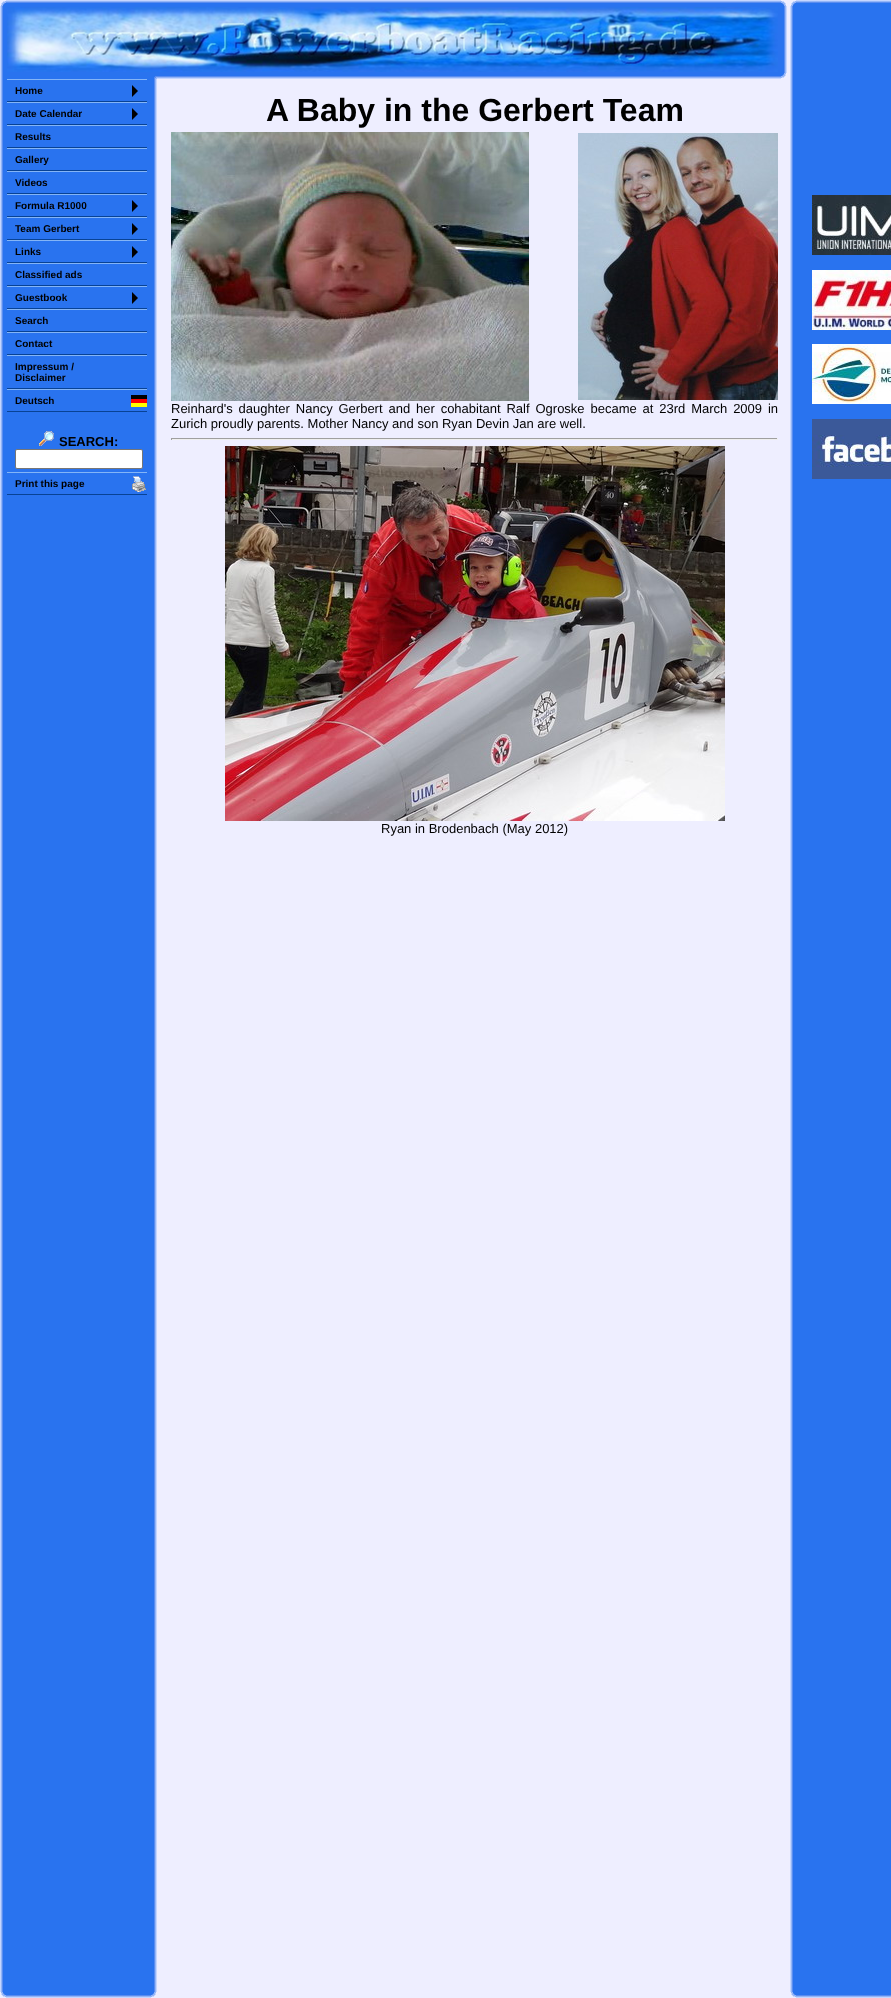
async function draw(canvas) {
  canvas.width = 891;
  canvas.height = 1998;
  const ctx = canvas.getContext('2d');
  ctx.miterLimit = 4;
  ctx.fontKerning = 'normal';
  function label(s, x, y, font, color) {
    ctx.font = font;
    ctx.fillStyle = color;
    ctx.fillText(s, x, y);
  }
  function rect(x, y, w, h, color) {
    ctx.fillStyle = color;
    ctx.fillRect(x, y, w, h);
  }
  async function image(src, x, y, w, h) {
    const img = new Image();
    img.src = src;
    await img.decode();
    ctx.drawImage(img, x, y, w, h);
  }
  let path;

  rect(0, 0, 891, 1998, '#eef');
  await image('assets/img1.png', 0, 0, 7, 7);
  await image('assets/img2.png', 7, 0, 773, 7);
  await image('assets/img3.png', 780, 0, 7, 7);
  await image('assets/img1.png', 790, 0, 7, 7);
  await image('assets/img4.png', 797, 0, 94, 7);
  await image('assets/img5.png', 0, 7, 7, 65);
  rect(778, 7, 2, 65, '#2973ef');
  await image('assets/img6.png', 7, 7, 771, 65);
  await image('assets/img7.png', 780, 7, 7, 65);
  await image('assets/img8.png', 790, 7, 7, 1984);
  rect(797, 7, 94, 1984, '#2973ef');
  await image('assets/img9.png', 812, 195, 79, 60);
  await image('assets/img10.png', 812, 270, 79, 60);
  await image('assets/img11.png', 812, 344, 79, 60);
  await image('assets/img12.png', 812, 419, 79, 60);
  await image('assets/img13.png', 0, 72, 7, 7);
  rect(7, 72, 143, 1919, '#2973ef');
  await image('assets/img14.png', 150, 72, 7, 7);
  await image('assets/img15.png', 157, 72, 623, 7);
  await image('assets/img16.png', 780, 72, 7, 7);
  await image('assets/img17.png', 0, 79, 7, 1912);
  rect(7, 79, 140, 1, '#84b5f7');
  rect(7, 101, 140, 1, '#084294');
  label('Home', 15, 94, 'bold 10px Liberation Sans', '#000');
  path = new Path2D('M132 97V85L138 91Z');
  ctx.fill(path);
  rect(7, 102, 140, 1, '#84b5f7');
  rect(7, 124, 140, 1, '#084294');
  label('Date Calendar', 15, 117, 'bold 10px Liberation Sans', '#000');
  path = new Path2D('M132 120V108L138 114Z');
  ctx.fill(path);
  rect(7, 125, 140, 1, '#84b5f7');
  rect(7, 147, 140, 1, '#084294');
  label('Results', 15, 140, 'bold 10px Liberation Sans', '#000');
  rect(7, 148, 140, 1, '#84b5f7');
  rect(7, 170, 140, 1, '#084294');
  label('Gallery', 15, 163, 'bold 10px Liberation Sans', '#000');
  rect(7, 171, 140, 1, '#84b5f7');
  rect(7, 193, 140, 1, '#084294');
  label('Videos', 15, 186, 'bold 10px Liberation Sans', '#000');
  rect(7, 194, 140, 1, '#84b5f7');
  rect(7, 216, 140, 1, '#084294');
  label('Formula R1000', 15, 209, 'bold 10px Liberation Sans', '#000');
  path = new Path2D('M132 212V200L138 206Z');
  ctx.fill(path);
  rect(7, 217, 140, 1, '#84b5f7');
  rect(7, 239, 140, 1, '#084294');
  label('Team Gerbert', 15, 232, 'bold 10px Liberation Sans', '#000');
  path = new Path2D('M132 235V223L138 229Z');
  ctx.fill(path);
  rect(7, 240, 140, 1, '#84b5f7');
  rect(7, 262, 140, 1, '#084294');
  label('Links', 15, 255, 'bold 10px Liberation Sans', '#000');
  path = new Path2D('M132 258V246L138 252Z');
  ctx.fill(path);
  rect(7, 263, 140, 1, '#84b5f7');
  rect(7, 285, 140, 1, '#084294');
  label('Classified ads', 15, 278, 'bold 10px Liberation Sans', '#000');
  rect(7, 286, 140, 1, '#84b5f7');
  rect(7, 308, 140, 1, '#084294');
  label('Guestbook', 15, 301, 'bold 10px Liberation Sans', '#000');
  path = new Path2D('M132 304V292L138 298Z');
  ctx.fill(path);
  rect(7, 309, 140, 1, '#84b5f7');
  rect(7, 331, 140, 1, '#084294');
  label('Search', 15, 324, 'bold 10px Liberation Sans', '#000');
  rect(7, 332, 140, 1, '#84b5f7');
  rect(7, 354, 140, 1, '#084294');
  label('Contact', 15, 347, 'bold 10px Liberation Sans', '#000');
  rect(7, 355, 140, 1, '#84b5f7');
  rect(7, 388, 140, 1, '#084294');
  label('Impressum /', 15, 370, 'bold 10px Liberation Sans', '#000');
  label('Disclaimer', 15, 381, 'bold 10px Liberation Sans', '#000');
  await image('assets/img18.png', 131, 395, 16, 12);
  rect(7, 389, 140, 1, '#84b5f7');
  rect(7, 411, 140, 1, '#084294');
  label('Deutsch', 15, 404, 'bold 10px Liberation Sans', '#000');
  await image('assets/img19.png', 39, 431, 15, 15);
  label('SEARCH:', 59, 446, 'bold 13px Liberation Sans', '#000');
  ctx.fillStyle = '#fff';
  ctx.beginPath();
  ctx.roundRect(15.5, 449.5, 127, 19, 1.5);
  ctx.fill();
  ctx.strokeStyle = '#767676';
  ctx.stroke();
  await image('assets/img20.png', 132, 476, 14, 16);
  rect(7, 472, 140, 1, '#84b5f7');
  rect(7, 494, 140, 1, '#084294');
  label('Print this page', 15, 487, 'bold 10px Liberation Sans', '#000');
  await image('assets/img21.png', 150, 79, 7, 1912);
  label('A Baby in the Gerbert Team', 266, 121, 'bold 32px Liberation Sans', '#000');
  await image('assets/img22.png', 171, 132, 358, 269);
  await image('assets/img23.png', 578, 133, 200, 267);
  ctx.wordSpacing = '2.25px';
  label('Reinhard\'s daughter Nancy Gerbert and her cohabitant Ralf Ogroske became at 23rd March 2009 in', 171, 413, '13px Liberation Sans', '#000');
  ctx.wordSpacing = '0px';
  label('Zurich proudly parents. Mother Nancy and son Ryan Devin Jan are well.', 171, 428, '13px Liberation Sans', '#000');
  rect(171, 438, 607, 1, '#9f9f9f');
  rect(777, 438, 1, 2, '#eee');
  rect(171, 439, 607, 1, '#eee');
  rect(171, 438, 1, 2, '#9f9f9f');
  await image('assets/img24.png', 225, 446, 500, 375);
  label('Ryan in Brodenbach (May 2012)', 381, 833, '13px Liberation Sans', '#000');
  await image('assets/img25.png', 0, 1991, 7, 7);
  await image('assets/img26.png', 7, 1991, 143, 7);
  await image('assets/img16.png', 150, 1991, 7, 7);
  await image('assets/img25.png', 790, 1991, 7, 7);
  await image('assets/img27.png', 797, 1991, 94, 7);
}

draw(document.querySelector('canvas'));
